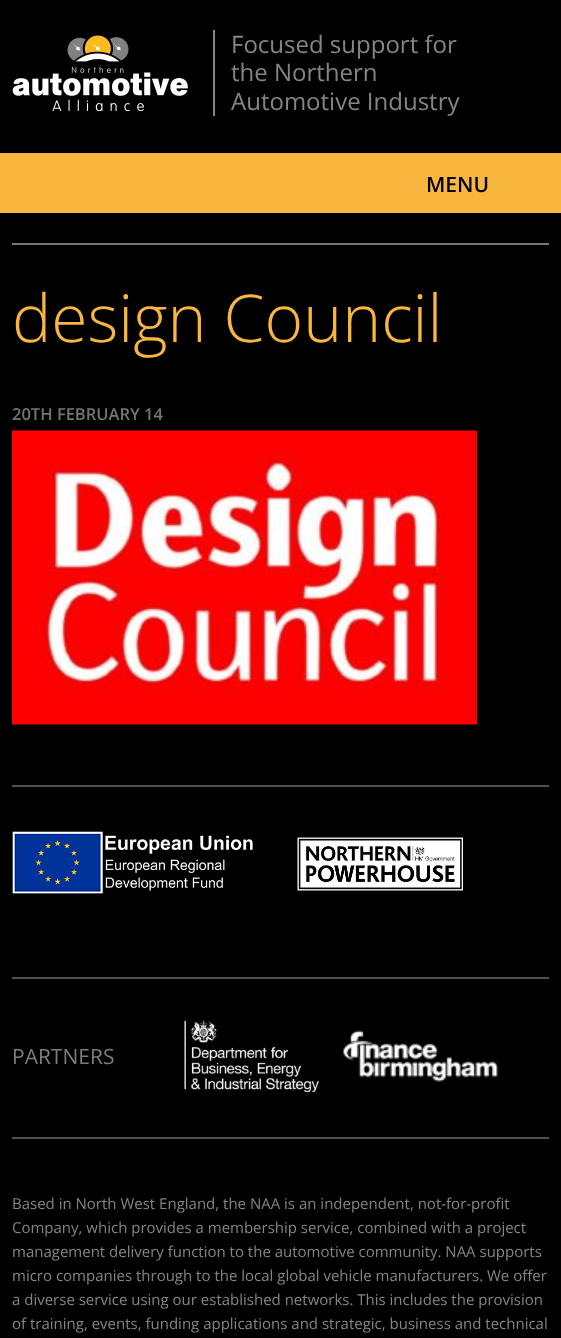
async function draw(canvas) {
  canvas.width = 561;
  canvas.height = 1338;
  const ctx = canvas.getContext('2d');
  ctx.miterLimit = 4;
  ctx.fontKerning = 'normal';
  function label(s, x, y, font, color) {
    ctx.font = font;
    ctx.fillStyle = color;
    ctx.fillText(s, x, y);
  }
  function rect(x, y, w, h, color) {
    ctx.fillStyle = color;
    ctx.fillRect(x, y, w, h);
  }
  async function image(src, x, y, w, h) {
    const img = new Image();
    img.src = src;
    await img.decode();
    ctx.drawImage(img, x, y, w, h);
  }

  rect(0, 0, 561, 1338, '#000');
  await image('assets/img1.png', 12, 35, 176, 76);
  rect(213, 30, 2, 86, '#858585');
  label('Focused support for', 231, 53, '24px Open Sans', '#858585');
  label('the Northern', 231, 81, '24px Open Sans', '#858585');
  label('Automotive Industry', 231, 110, '24px Open Sans', '#858585');
  rect(0, 153, 561, 60, '#f9b63e');
  label('MENU', 426, 192, '600 21px Open Sans', '#000');
  rect(12, 243, 537, 2, '#747474');
  label('design Council', 12, 342, '300 66px Open Sans', '#f9b63e');
  label('20TH FEBRUARY 14', 12, 420, '600 16.5px Open Sans', '#747474');
  await image('assets/img2.png', 12, 430, 465, 295);
  rect(12, 785, 537, 2, '#515151');
  await image('assets/img3.png', 12, 831, 241, 63);
  await image('assets/img4.png', 297, 837, 166, 54);
  rect(12, 977, 537, 2, '#515151');
  rect(12, 1137, 537, 2, '#515151');
  label('PARTNERS', 12, 1064, '21px Open Sans', '#7c7c7c');
  await image('assets/img5.png', 184, 1020, 135, 72);
  await image('assets/img6.png', 343, 1030, 156, 52);
  label('Based in North West England, the NAA is an independent, not-for-profit', 12, 1209, '15px Open Sans', '#858585');
  label('Company, which provides a membership service, combined with a project', 12, 1233, '15px Open Sans', '#858585');
  label('management delivery function to the automotive community. NAA supports', 12, 1257, '15px Open Sans', '#858585');
  label('micro companies through to the local global vehicle manufacturers. We offer', 12, 1281, '15px Open Sans', '#858585');
  label('a diverse service using our established networks. This includes the provision', 12, 1305, '15px Open Sans', '#858585');
  label('of training, events, funding applications and strategic, business and technical', 12, 1329, '15px Open Sans', '#858585');
}

draw(document.querySelector('canvas'));
